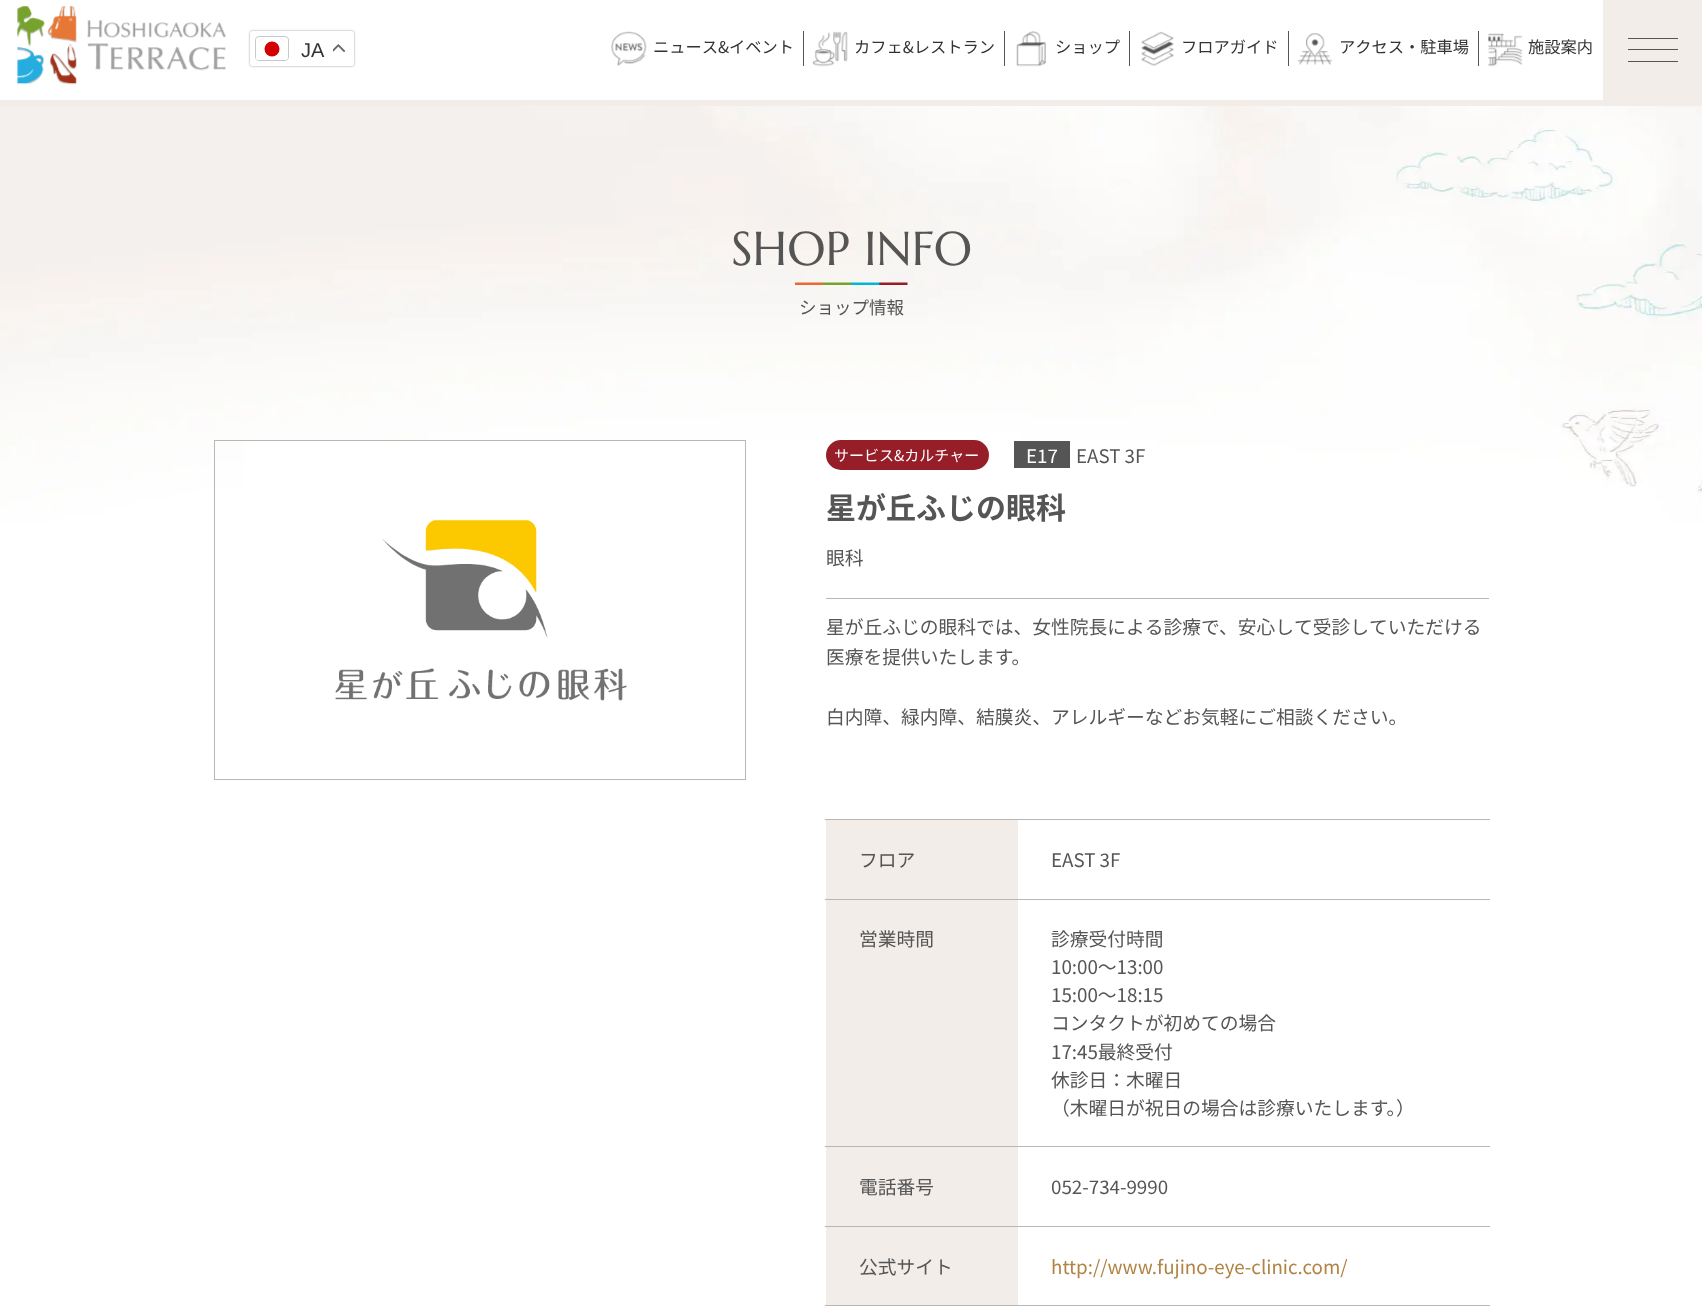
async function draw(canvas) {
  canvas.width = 1702;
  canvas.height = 1310;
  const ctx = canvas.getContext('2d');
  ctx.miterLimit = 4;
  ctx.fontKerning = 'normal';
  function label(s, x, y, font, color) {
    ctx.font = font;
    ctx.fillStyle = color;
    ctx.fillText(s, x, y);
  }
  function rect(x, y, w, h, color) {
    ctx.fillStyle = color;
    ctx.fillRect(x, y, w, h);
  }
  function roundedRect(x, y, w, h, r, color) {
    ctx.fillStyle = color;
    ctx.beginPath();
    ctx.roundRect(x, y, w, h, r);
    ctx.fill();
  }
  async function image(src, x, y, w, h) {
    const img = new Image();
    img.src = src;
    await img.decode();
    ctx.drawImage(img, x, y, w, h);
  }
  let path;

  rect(0, 0, 1702, 1310, '#fff');
  ctx.fillStyle = '#f2ede9';
  path = new Path2D('M0 100V106H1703V6H1702V100Z');
  ctx.fill(path);
  await image('assets/img1.png', 17, 6, 210, 79);
  ctx.fillStyle = '#a6998f';
  ctx.filter = 'blur(1px)';
  ctx.beginPath();
  ctx.roundRect(250, 31, 104, 35, 2.5);
  ctx.fill();
  ctx.filter = 'none';
  roundedRect(250, 31, 104, 35, 2.5, '#fff');
  ctx.beginPath();
  ctx.roundRect(255.5, 36.5, 33, 24, 3.5);
  ctx.strokeStyle = '#c9c9c9';
  ctx.stroke();
  path = new Path2D('M258.5 38H285.5C286.5 38 287 38.5 287.5 39V59C287 59.5 286.5 60 285.5 60H258.5C257.5 60 256.5 59.5 256 58.5V39.5C256.5 38.5 257.5 38 258.5 38Z');
  ctx.fill(path);
  ctx.fillStyle = '#d30000';
  ctx.beginPath();
  ctx.arc(272, 49, 7.5, 0, 2 * Math.PI);
  ctx.fill();
  label('JA', 301, 57, '20px Liberation Sans', '#333');
  await image('assets/img2.png', 333, 44, 13, 9);
  rect(1603, 0, 99, 100, '#f2ede9');
  rect(1628, 38, 50, 1, '#555');
  rect(1628, 49, 50, 1, '#555');
  rect(1628, 61, 50, 1, '#555');
  rect(803, 31, 1, 35, '#555');
  await image('assets/img3.png', 611, 31, 36, 35);
  label('ニュース&イベント', 653, 53, '16.25px Noto Sans JP', '#333');
  rect(1004, 31, 1, 35, '#555');
  await image('assets/img4.png', 812, 31, 36, 36);
  label('カフェ&レストラン', 854, 53, '16.25px Noto Sans JP', '#333');
  rect(1129, 31, 1, 35, '#555');
  await image('assets/img5.png', 1016, 31, 30, 36);
  label('ショップ', 1055, 53, '16.25px Noto Sans JP', '#333');
  rect(1288, 31, 1, 35, '#555');
  await image('assets/img6.png', 1141, 31, 33, 35);
  label('フロアガイド', 1181, 53, '16.25px Noto Sans JP', '#333');
  rect(1478, 31, 1, 35, '#555');
  await image('assets/img7.png', 1297, 33, 36, 32);
  label('アクセス・駐車場', 1339, 53, '16.25px Noto Sans JP', '#333');
  await image('assets/img8.png', 1488, 33, 35, 34);
  label('施設案内', 1528, 53, '16.25px Noto Sans JP', '#333');
  await image('assets/img9.png', 0, 106, 1702, 417);
  await image('assets/img10.png', 795, 282, 113, 3);
  label('SHOP INFO', 731, 265, '47.5px Marcellus', '#555');
  label('ショップ情報', 799, 314, '17.5px Noto Sans JP', '#555');
  ctx.strokeStyle = '#b7b7b7';
  ctx.strokeRect(214.5, 440.5, 531, 339);
  await image('assets/img11.png', 244, 441, 383, 260);
  roundedRect(826, 440, 163, 30, 15, '#961e28');
  label('サービス&カルチャー', 834, 461, '15px Noto Sans JP', '#fff');
  rect(1014, 441, 56, 27, '#555');
  label('E17', 1026, 463, '18.75px Noto Sans JP', '#fff');
  label('EAST 3F', 1076, 463, '18.75px Noto Sans JP', '#555');
  label('星が丘ふじの眼科', 826, 519, 'bold 30px Noto Sans JP', '#555');
  rect(826, 598, 663, 1, '#b7b7b7');
  label('眼科', 826, 565, '18.75px Noto Sans JP', '#555');
  label('星が丘ふじの眼科では、女性院長による診療で、安心して受診していただける', 826, 634, '18.75px Noto Sans JP', '#555');
  label('医療を提供いたします。', 826, 664, '18.75px Noto Sans JP', '#555');
  label('白内障、緑内障、結膜炎、アレルギーなどお気軽にご相談ください。', 826, 724, '18.75px Noto Sans JP', '#555');
  rect(826, 820, 192, 79, '#f2ede9');
  label('フロア', 859, 867, '18.75px Noto Sans JP', '#555');
  rect(825, 819, 665, 1, '#b7b7b7');
  label('EAST 3F', 1051, 867, '18.75px Noto Sans JP', '#555');
  rect(826, 900, 192, 326, '#f2ede9');
  label('営業時間', 859, 946, '18.75px Noto Sans JP', '#555');
  rect(825, 899, 665, 1, '#b7b7b7');
  label('診療受付時間', 1051, 946, '18.75px Noto Sans JP', '#555');
  label('10:00〜13:00', 1051, 974, '18.75px Noto Sans JP', '#555');
  label('15:00〜18:15', 1051, 1002, '18.75px Noto Sans JP', '#555');
  label('コンタクトが初めての場合', 1051, 1030, '18.75px Noto Sans JP', '#555');
  label('17:45最終受付', 1051, 1059, '18.75px Noto Sans JP', '#555');
  label('休診日：木曜日', 1051, 1087, '18.75px Noto Sans JP', '#555');
  label('（木曜日が祝日の場合は診療いたします。）', 1051, 1115, '18.75px Noto Sans JP', '#555');
  label('電話番号', 859, 1194, '18.75px Noto Sans JP', '#555');
  rect(825, 1146, 665, 1, '#b7b7b7');
  label('052-734-9990', 1051, 1194, '18.75px Noto Sans JP', '#555');
  rect(826, 1227, 192, 78, '#f2ede9');
  label('公式サイト', 859, 1274, '18.75px Noto Sans JP', '#555');
  rect(825, 1226, 665, 1, '#b7b7b7');
  rect(825, 1305, 665, 1, '#b7b7b7');
  label('http://www.fujino-eye-clinic.com/', 1051, 1274, '18.75px Noto Sans JP', '#b18344');
}

draw(document.querySelector('canvas'));
